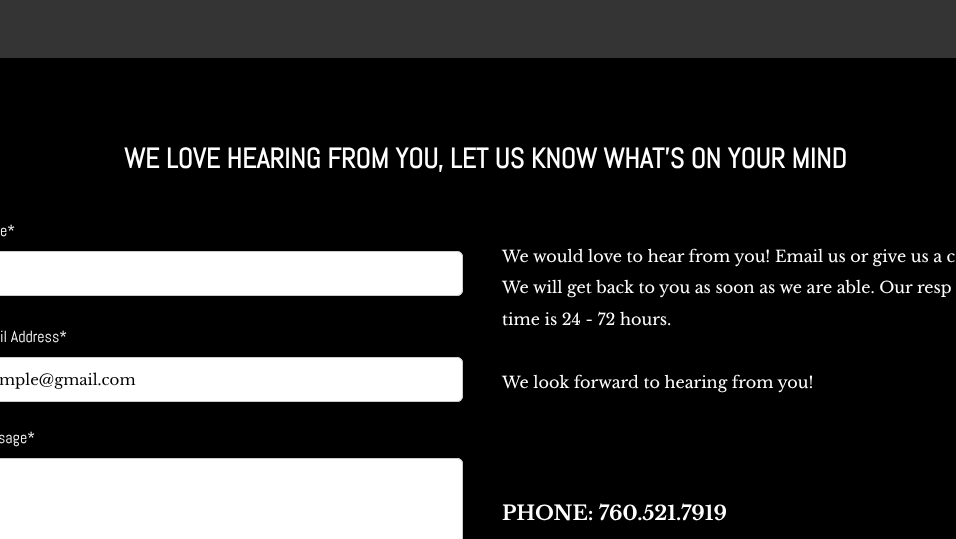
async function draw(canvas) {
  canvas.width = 956;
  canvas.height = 539;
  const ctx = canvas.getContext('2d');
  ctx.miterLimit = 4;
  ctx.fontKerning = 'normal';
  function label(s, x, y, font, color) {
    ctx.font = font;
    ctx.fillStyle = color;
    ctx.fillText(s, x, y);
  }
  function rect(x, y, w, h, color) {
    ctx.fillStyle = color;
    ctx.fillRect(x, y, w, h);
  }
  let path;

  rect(0, 0, 956, 539, '#343434');
  rect(0, 58, 956, 481, '#000');
  label('WE LOVE HEARING FROM YOU, LET US KNOW WHAT\'S ON YOUR MIND', 124, 168, 'bold 28px Abel', '#fff');
  label('e*', 0, 236, '16px Abel', '#fff');
  ctx.beginPath();
  ctx.roundRect(0, 251, 463, 45, [0, 6, 6, 0]);
  ctx.fill();
  ctx.beginPath();
  ctx.roundRect(-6.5, 251.5, 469, 44, 5.5);
  ctx.strokeStyle = '#ccc';
  ctx.stroke();
  label('il Address*', 0, 342, '16px Abel', '#fff');
  ctx.beginPath();
  ctx.roundRect(0, 357, 463, 45, [0, 6, 6, 0]);
  ctx.fill();
  ctx.beginPath();
  ctx.roundRect(-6.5, 357.5, 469, 44, 5.5);
  ctx.stroke();
  label('mple@gmail.com', -1, 385, '15px Libre Baskerville', '#000');
  label('sage*', -2, 443, '16px Abel', '#fff');
  path = new Path2D('M0 458H457C460.5 458 463 460.5 463 464V539C463 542.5 460.5 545 457 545H0Z');
  ctx.fill(path);
  ctx.beginPath();
  ctx.roundRect(-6.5, 458.5, 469, 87, 5.5);
  ctx.stroke();
  label('We would love to hear from you! Email us or give us a c', 502, 262, '16px Libre Baskerville', '#fff');
  label('We will get back to you as soon as we are able. Our resp', 502, 293, '16px Libre Baskerville', '#fff');
  label('time is 24 - 72 hours.', 502, 325, '16px Libre Baskerville', '#fff');
  label('We look forward to hearing from you!', 502, 388, '16px Libre Baskerville', '#fff');
  label('PHONE: 760.521.7919', 502, 520, 'bold 20px Libre Baskerville', '#fff');
}

draw(document.querySelector('canvas'));
